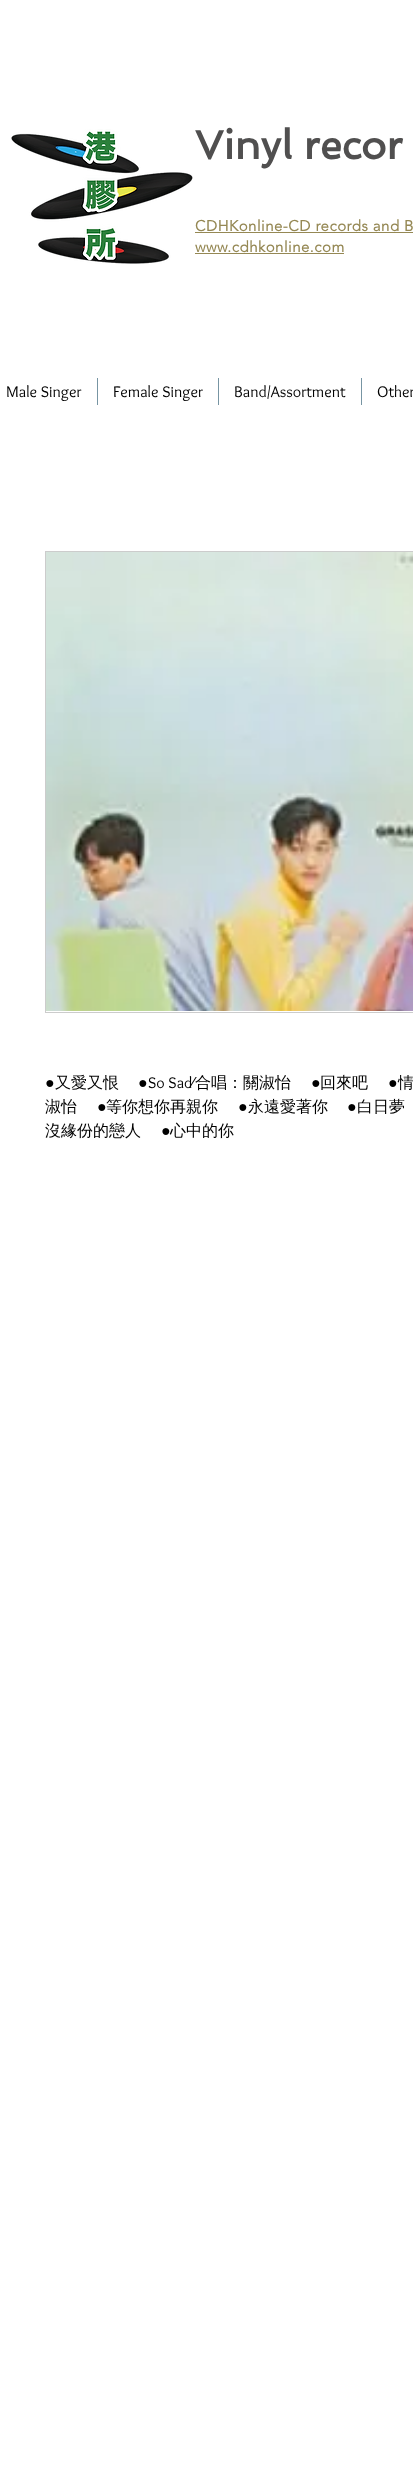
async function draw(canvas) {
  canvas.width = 413;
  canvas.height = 2491;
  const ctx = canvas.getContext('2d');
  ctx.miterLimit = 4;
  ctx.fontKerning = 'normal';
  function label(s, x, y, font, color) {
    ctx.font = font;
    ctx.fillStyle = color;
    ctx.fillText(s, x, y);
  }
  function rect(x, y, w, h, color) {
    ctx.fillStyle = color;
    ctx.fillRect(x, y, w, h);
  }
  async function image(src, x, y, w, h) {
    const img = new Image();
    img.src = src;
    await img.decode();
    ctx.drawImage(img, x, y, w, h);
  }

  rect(0, 0, 413, 2491, '#fff');
  await image('assets/img1.png', 11, 129, 182, 135);
  label('Vinyl recor', 195, 159, 'bold 40px Spinnaker', '#504f4f');
  ctx.letterSpacing = '0.5px';
  label('CDHKonline-CD records and B', 195, 231, 'bold 15px "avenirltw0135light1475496"', '#958854');
  rect(195, 232, 218, 1, '#958854');
  label('www.cdhkonline.com', 195, 252, 'bold 15px "avenirltw0135light1475496"', '#958854');
  rect(195, 253, 149, 1, '#958854');
  ctx.letterSpacing = '0px';
  label('Male Singer', 6, 397, '16px Overlock', '#000');
  rect(97, 378, 1, 27, '#7795a3');
  label('Female Singer', 113, 397, '16px Overlock', '#000');
  rect(218, 378, 1, 27, '#7795a3');
  label('Band/Assortment', 234, 397, '16px Overlock', '#000');
  rect(361, 378, 1, 27, '#7795a3');
  label('Other', 377, 397, '16px Overlock', '#000');
  ctx.strokeStyle = '#ccc';
  ctx.strokeRect(45.5, 551.5, 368, 461);
  await image('assets/img2.png', 46, 552, 367, 459);
  label('●', 45, 1088, '16px Liberation Sans', '#000');
  label('又愛又恨', 55, 1088, '500 16px WenQuanYi Zen Hei', '#000');
  label('●', 138, 1088, '16px Liberation Sans', '#000');
  label('So Sad', 148, 1088, '16px Overlock', '#000');
  label('∕', 192, 1088, '16px Liberation Sans', '#000');
  label('合唱：關淑怡', 195, 1088, '500 16px WenQuanYi Zen Hei', '#000');
  label('●', 311, 1088, '16px Liberation Sans', '#000');
  label('回來吧', 320, 1088, '500 16px WenQuanYi Zen Hei', '#000');
  label('●', 388, 1088, '16px Liberation Sans', '#000');
  label('情', 398, 1088, '500 16px WenQuanYi Zen Hei', '#000');
  label('淑怡', 45, 1112, '500 16px WenQuanYi Zen Hei', '#000');
  label('●', 97, 1112, '16px Liberation Sans', '#000');
  label('等你想你再親你', 106, 1112, '500 16px WenQuanYi Zen Hei', '#000');
  label('●', 238, 1112, '16px Liberation Sans', '#000');
  label('永遠愛著你', 248, 1112, '500 16px WenQuanYi Zen Hei', '#000');
  label('●', 347, 1112, '16px Liberation Sans', '#000');
  label('白日夢', 357, 1112, '500 16px WenQuanYi Zen Hei', '#000');
  label('沒緣份的戀人', 45, 1136, '500 16px WenQuanYi Zen Hei', '#000');
  label('●', 161, 1136, '16px Liberation Sans', '#000');
  label('心中的你', 170, 1136, '500 16px WenQuanYi Zen Hei', '#000');
}

draw(document.querySelector('canvas'));
